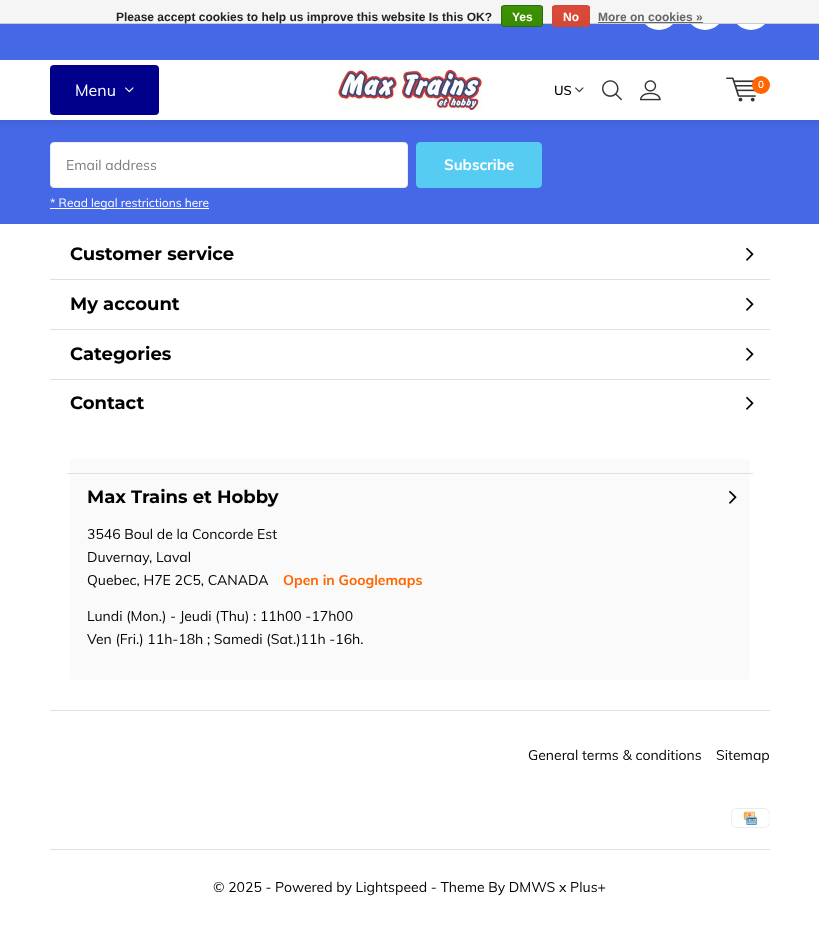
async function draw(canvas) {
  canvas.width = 819;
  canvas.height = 925;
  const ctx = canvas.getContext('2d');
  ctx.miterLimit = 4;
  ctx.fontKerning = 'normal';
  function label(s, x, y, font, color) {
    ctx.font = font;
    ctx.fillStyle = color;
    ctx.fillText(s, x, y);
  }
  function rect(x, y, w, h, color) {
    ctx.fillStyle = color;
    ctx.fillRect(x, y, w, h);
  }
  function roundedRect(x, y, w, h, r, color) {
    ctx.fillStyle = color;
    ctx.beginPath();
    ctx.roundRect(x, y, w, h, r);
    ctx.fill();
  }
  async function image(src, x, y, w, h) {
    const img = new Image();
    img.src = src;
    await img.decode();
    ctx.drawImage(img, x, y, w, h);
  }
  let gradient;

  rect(0, 0, 819, 925, '#fff');
  rect(0, 24, 819, 200, '#4568e6');
  ctx.fillStyle = '#fff';
  ctx.beginPath();
  ctx.arc(659, 11, 19, 0, 2 * Math.PI);
  ctx.fill();
  ctx.beginPath();
  ctx.arc(705, 11, 19, 0, 2 * Math.PI);
  ctx.fill();
  ctx.beginPath();
  ctx.arc(751, 11, 19, 0, 2 * Math.PI);
  ctx.fill();
  rect(0, 0, 819, 23, '#f5f5f5');
  rect(0, 23, 819, 1, '#ccc');
  label('Please accept cookies to help us improve this website Is this OK?', 116, 21, 'bold 12px Liberation Sans', '#222');
  ctx.save();
  ctx.beginPath();
  ctx.roundRect(501, 5, 42, 22, 3);
  ctx.clip();
  gradient = ctx.createLinearGradient(522, 6, 522, 26);
  gradient.addColorStop(0, '#3c9300');
  gradient.addColorStop(1, '#398a00');
  ctx.fillStyle = gradient;
  ctx.fillRect(501, 6, 42, 20);
  ctx.restore();
  ctx.beginPath();
  ctx.roundRect(501.5, 5.5, 41, 21, 2.5);
  ctx.strokeStyle = '#29691d';
  ctx.stroke();
  label('Yes', 512, 21, 'bold 12px Liberation Sans', '#fff');
  ctx.save();
  ctx.beginPath();
  ctx.roundRect(552, 5, 38, 22, 3);
  ctx.clip();
  gradient = ctx.createLinearGradient(571, 6, 571, 26);
  gradient.addColorStop(0, '#dc4a38');
  gradient.addColorStop(1, '#d14836');
  ctx.fillStyle = gradient;
  ctx.fillRect(552, 6, 38, 20);
  ctx.restore();
  ctx.beginPath();
  ctx.roundRect(552.5, 5.5, 37, 21, 2.5);
  ctx.strokeStyle = '#d14836';
  ctx.stroke();
  label('No', 563, 21, 'bold 12px Liberation Sans', '#fff');
  label('More on cookies »', 598, 21, 'bold 12px Liberation Sans', '#666');
  rect(598, 22, 105, 1, '#666');
  ctx.fillStyle = '#0000000d';
  ctx.filter = 'blur(2px)';
  ctx.beginPath();
  ctx.rect(-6, 64, 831, 60);
  ctx.fill();
  ctx.filter = 'none';
  rect(0, 60, 819, 60, '#fff');
  await image('assets/img1.png', 335, 70, 148, 40);
  roundedRect(50, 65, 109, 50, 4, '#00008b');
  label('Menu', 75, 96, '16px Muli', '#fff');
  await image('assets/img2.png', 125, 87, 9, 6);
  label('US', 554, 95, '600 13px Muli', '#000');
  await image('assets/img3.png', 575, 87, 9, 6);
  await image('assets/img4.png', 602, 80, 20, 21);
  await image('assets/img5.png', 640, 80, 21, 21);
  await image('assets/img6.png', 726, 77, 30, 25);
  ctx.fillStyle = '#ff6602';
  ctx.beginPath();
  ctx.arc(761, 85, 9, 0, 2 * Math.PI);
  ctx.fill();
  label('0', 758, 88, '600 10px Muli', '#fff');
  ctx.beginPath();
  ctx.roundRect(50.5, 142.5, 357, 45, 3.5);
  ctx.fill();
  ctx.strokeStyle = '#ededed';
  ctx.stroke();
  label('Email address', 66, 170, '14px Muli', '#7d7d7d');
  ctx.fillStyle = '#56ccf2';
  ctx.beginPath();
  ctx.roundRect(416.5, 142.5, 125, 45, 3.5);
  ctx.fill();
  ctx.strokeStyle = '#56ccf2';
  ctx.stroke();
  label('Subscribe', 444, 170, 'bold 15px Muli', '#fff');
  rect(50, 208, 159, 1, '#fff');
  label('* Read legal restrictions here', 50, 207, '12px Muli', '#fff');
  rect(50, 710, 720, 1, '#e0e0e0');
  label('Customer service', 70, 260, 'bold 18px Montserrat', '#000');
  await image('assets/img7.png', 746, 247, 8, 14);
  rect(50, 279, 720, 1, '#e0e0e0');
  label('My account', 70, 310, 'bold 18px Montserrat', '#000');
  await image('assets/img7.png', 746, 297, 8, 14);
  rect(50, 329, 720, 1, '#e0e0e0');
  label('Categories', 70, 360, 'bold 18px Montserrat', '#000');
  await image('assets/img7.png', 746, 347, 8, 14);
  rect(50, 379, 720, 1, '#e0e0e0');
  label('Contact', 70, 409, 'bold 18px Montserrat', '#000');
  await image('assets/img7.png', 746, 396, 8, 14);
  roundedRect(70, 459, 680, 221, 4, '#fafafa');
  rect(67, 473, 686, 1, '#e0e0e0');
  label('Max Trains et Hobby', 87, 503, 'bold 18px Montserrat', '#000');
  await image('assets/img8.png', 729, 490, 8, 14);
  label('3546 Boul de la Concorde Est', 87, 539, '14px Muli', '#000');
  label('Duvernay, Laval', 87, 562, '14px Muli', '#000');
  label('Quebec, H7E 2C5, CANADA', 87, 585, '14px Muli', '#000');
  label('Open in Googlemaps', 283, 585, 'bold 14px Muli', '#ff6602');
  label('Lundi (Mon.) - Jeudi (Thu) : 11h00 -17h00', 87, 621, '14px Muli', '#000');
  label('Ven (Fri.) 11h-18h ; Samedi (Sat.)11h -16h.', 87, 644, '14px Muli', '#000');
  label('General terms & conditions', 528, 760, '14px Muli', '#000');
  label('Sitemap', 716, 760, '14px Muli', '#000');
  await image('assets/img9.png', 731, 808, 39, 20);
  rect(50, 849, 720, 1, '#e0e0e0');
  label('© 2025 - Powered by Lightspeed - Theme By DMWS x Plus+', 213, 892, '14px Muli', '#000');
}

draw(document.querySelector('canvas'));
